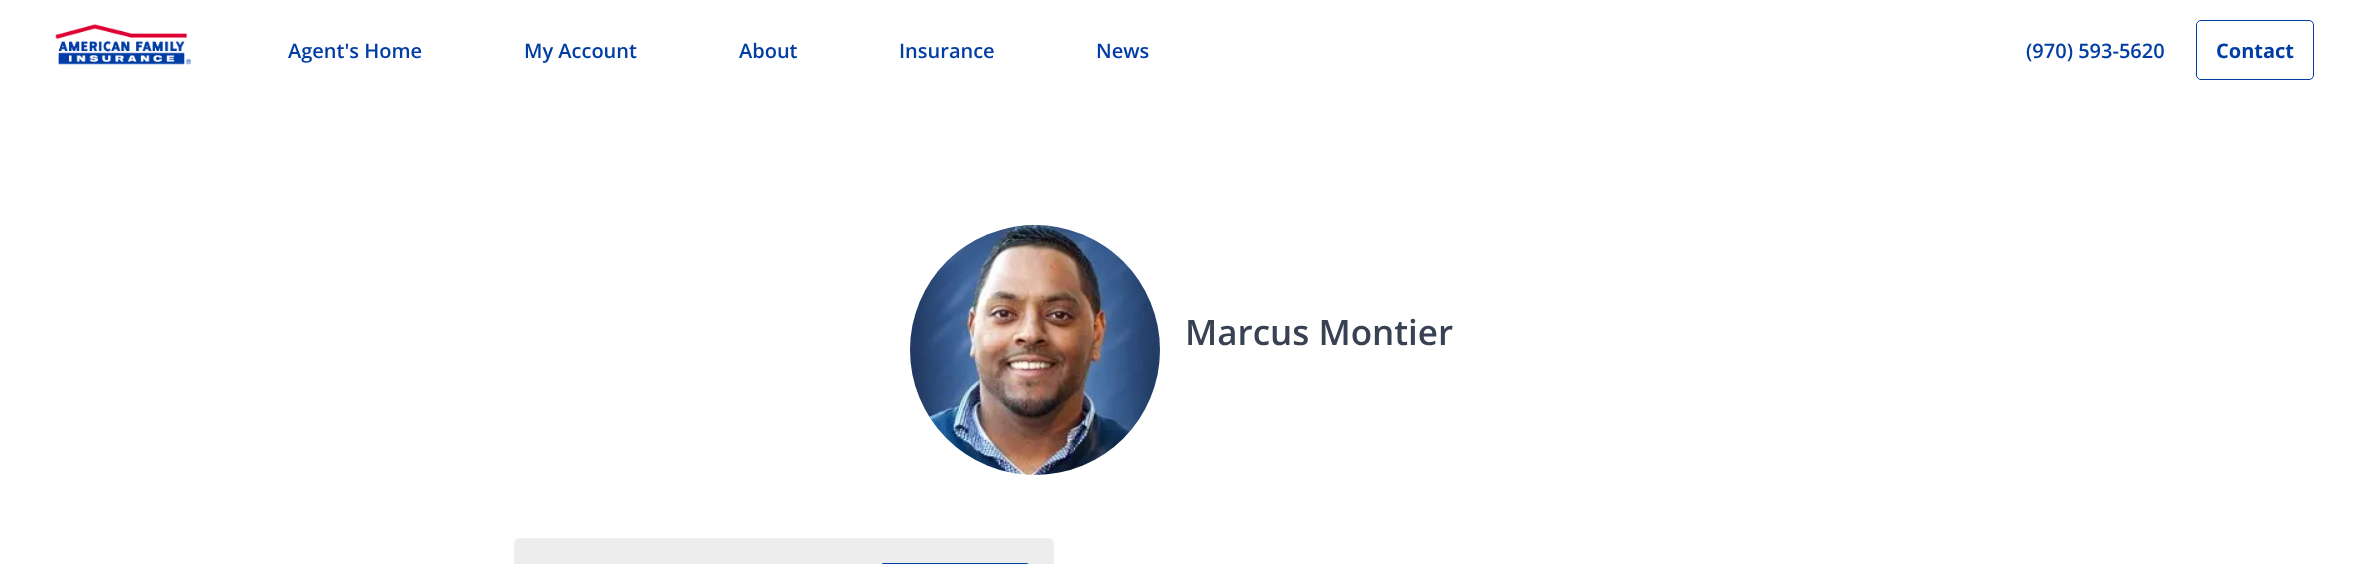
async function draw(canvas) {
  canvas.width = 2363;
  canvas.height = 564;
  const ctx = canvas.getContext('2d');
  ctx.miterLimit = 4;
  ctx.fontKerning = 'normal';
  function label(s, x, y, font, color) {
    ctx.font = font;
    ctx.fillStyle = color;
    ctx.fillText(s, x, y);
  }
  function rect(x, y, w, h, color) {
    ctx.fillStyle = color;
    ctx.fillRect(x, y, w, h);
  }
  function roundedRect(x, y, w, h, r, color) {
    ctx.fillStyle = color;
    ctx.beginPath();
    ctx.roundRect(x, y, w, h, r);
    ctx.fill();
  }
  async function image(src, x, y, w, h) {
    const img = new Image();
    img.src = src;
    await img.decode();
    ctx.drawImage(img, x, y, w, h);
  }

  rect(0, 0, 2363, 564, '#fff');
  await image('assets/img1.png', 55, 24, 137, 41);
  label('Agent\'s Home', 288, 58, '600 20px Open Sans', '#003da5');
  label('My Account', 524, 58, '600 20px Open Sans', '#003da5');
  label('About', 739, 58, '600 20px Open Sans', '#003da5');
  label('Insurance', 899, 58, '600 20px Open Sans', '#003da5');
  label('News', 1096, 58, '600 20px Open Sans', '#003da5');
  label('(970) 593-5620', 2026, 58, '600 20px Open Sans', '#003da5');
  ctx.beginPath();
  ctx.roundRect(2196.5, 20.5, 117, 59, 4.5);
  ctx.strokeStyle = '#003da5';
  ctx.stroke();
  label('Contact', 2216, 58, 'bold 20px Open Sans', '#003da5');
  await image('assets/img2.png', 910, 225, 250, 250);
  label('Marcus Montier', 1185, 345, '600 35px Open Sans', '#384252');
  roundedRect(514, 538, 540, 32, 6, '#ededed');
  roundedRect(881, 563, 148, 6, 5, '#003da5');
}

draw(document.querySelector('canvas'));
